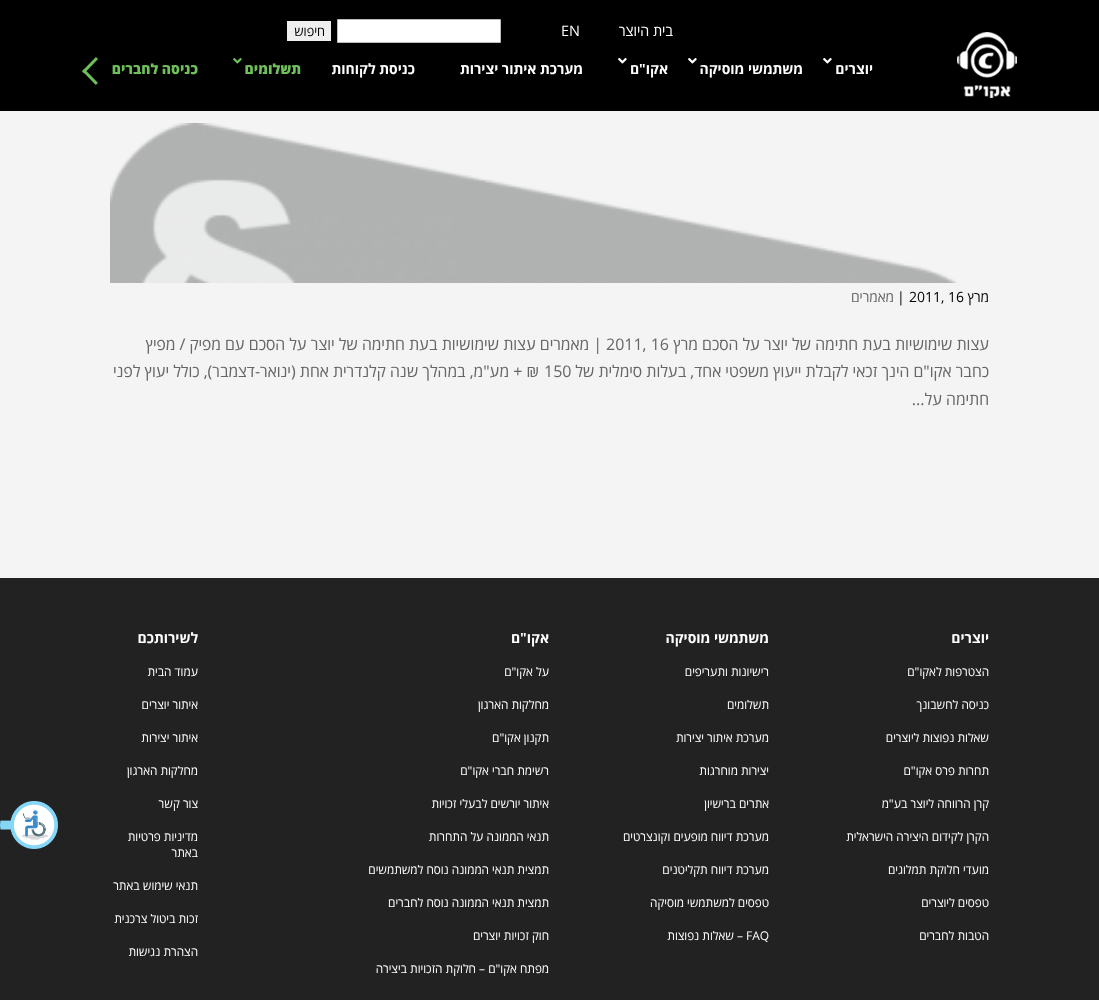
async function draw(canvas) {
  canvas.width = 1099;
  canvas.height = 1000;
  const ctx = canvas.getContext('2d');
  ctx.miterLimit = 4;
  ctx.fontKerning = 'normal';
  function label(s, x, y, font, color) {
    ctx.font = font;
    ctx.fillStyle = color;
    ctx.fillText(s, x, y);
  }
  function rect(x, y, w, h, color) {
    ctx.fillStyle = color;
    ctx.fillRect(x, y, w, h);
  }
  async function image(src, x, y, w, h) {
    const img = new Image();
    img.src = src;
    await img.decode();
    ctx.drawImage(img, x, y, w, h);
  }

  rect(0, 0, 1099, 1000, '#000');
  ctx.direction = 'rtl';
  label('בית היוצר', 673, 36, '14.5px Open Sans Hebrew', '#fff');
  ctx.direction = 'ltr';
  label('EN', 561, 36, '14.5px Open Sans Hebrew', '#fff');
  ctx.beginPath();
  ctx.rect(337.5, 19.5, 163, 23);
  ctx.fill();
  ctx.strokeStyle = '#bbb';
  ctx.stroke();
  rect(287, 21, 44, 20, '#efefef');
  ctx.direction = 'rtl';
  label('חיפוש', 325, 36, '13px Open Sans Hebrew', '#000');
  await image('assets/img1.png', 957, 32, 60, 66);
  await image('assets/img2.png', 823, 58, 9, 6);
  label('יוצרים', 873, 74, 'bold 14px Open Sans Hebrew', '#fff');
  await image('assets/img2.png', 688, 58, 9, 6);
  label('משתמשי מוסיקה', 803, 74, 'bold 14px Open Sans Hebrew', '#fff');
  await image('assets/img2.png', 618, 58, 9, 6);
  label('אקו"ם', 668, 74, 'bold 14px Open Sans Hebrew', '#fff');
  label('מערכת איתור יצירות', 583, 74, 'bold 14px Open Sans Hebrew', '#fff');
  label('כניסת לקוחות', 415, 74, 'bold 14px Open Sans Hebrew', '#fff');
  await image('assets/img3.png', 233, 58, 9, 6);
  label('תשלומים', 301, 74, '800 14px Open Sans Hebrew', '#6fc05a');
  label('כניסה לחברים', 198, 74, '800 14px Open Sans Hebrew', '#6fc05a');
  await image('assets/img4.png', 82, 57, 16, 28);
  rect(0, 111, 1099, 467, '#f4f4f4');
  await image('assets/img5.png', 110, 123, 848, 160);
  label('מרץ', 989, 302, '14px Open Sans Hebrew', '#000');
  ctx.direction = 'ltr';
  label('2011, 16', 909, 302, '14px Open Sans Hebrew', '#000');
  label('|', 897, 302, '14px Open Sans Hebrew', '#000');
  ctx.direction = 'rtl';
  label('מאמרים', 894, 302, '14px Open Sans Hebrew', '#666');
  label('עצות שימושיות בעת חתימה של יוצר על הסכם מרץ', 989, 350, '16px Open Sans Hebrew', '#666');
  ctx.direction = 'ltr';
  label('2011, 16', 606, 350, '16px Open Sans Hebrew', '#666');
  ctx.direction = 'rtl';
  label('| מאמרים עצות שימושיות בעת חתימה של יוצר על הסכם עם מפיק / מפיץ', 602, 350, '16px Open Sans Hebrew', '#666');
  label('כחבר אקו"ם הינך זכאי לקבלת ייעוץ משפטי אחד, בעלות סימלית של', 989, 377, '16px Open Sans Hebrew', '#666');
  ctx.direction = 'ltr';
  label('150', 544, 377, '16px Open Sans Hebrew', '#666');
  ctx.direction = 'rtl';
  label('₪ + מע"מ, במהלך שנה קלנדרית אחת (ינואר-דצמבר), כולל יעוץ לפני', 539, 377, '16px Open Sans Hebrew', '#666');
  label('חתימה על...', 989, 405, '16px Open Sans Hebrew', '#666');
  rect(0, 578, 1099, 422, '#222');
  label('יוצרים', 989, 643, 'bold 14px Open Sans Hebrew', '#fff');
  label('הצטרפות לאקו"ם', 989, 676, '12px Open Sans Hebrew', '#fff');
  label('כניסה לחשבונך', 989, 709, '12px Open Sans Hebrew', '#fff');
  label('שאלות נפוצות ליוצרים', 989, 742, '12px Open Sans Hebrew', '#fff');
  label('תחרות פרס אקו"ם', 989, 775, '12px Open Sans Hebrew', '#fff');
  label('קרן הרווחה ליוצר בע"מ', 989, 808, '12px Open Sans Hebrew', '#fff');
  label('הקרן לקידום היצירה הישראלית', 989, 841, '12px Open Sans Hebrew', '#fff');
  label('מועדי חלוקת תמלוגים', 989, 874, '12px Open Sans Hebrew', '#fff');
  label('טפסים ליוצרים', 989, 907, '12px Open Sans Hebrew', '#fff');
  label('הטבות לחברים', 989, 940, '12px Open Sans Hebrew', '#fff');
  label('משתמשי מוסיקה', 769, 643, 'bold 14px Open Sans Hebrew', '#fff');
  label('רישיונות ותעריפים', 769, 676, '12px Open Sans Hebrew', '#fff');
  label('תשלומים', 769, 709, '12px Open Sans Hebrew', '#fff');
  label('מערכת איתור יצירות', 769, 742, '12px Open Sans Hebrew', '#fff');
  label('יצירות מוחרגות', 769, 775, '12px Open Sans Hebrew', '#fff');
  label('אתרים ברישיון', 769, 808, '12px Open Sans Hebrew', '#fff');
  label('מערכת דיווח מופעים וקונצרטים', 769, 841, '12px Open Sans Hebrew', '#fff');
  label('מערכת דיווח תקליטנים', 769, 874, '12px Open Sans Hebrew', '#fff');
  label('טפסים למשתמשי מוסיקה', 769, 907, '12px Open Sans Hebrew', '#fff');
  ctx.direction = 'ltr';
  label('FAQ', 746, 940, '12px Open Sans Hebrew', '#fff');
  ctx.direction = 'rtl';
  label('– שאלות נפוצות', 743, 940, '12px Open Sans Hebrew', '#fff');
  label('אקו"ם', 549, 643, 'bold 14px Open Sans Hebrew', '#fff');
  label('על אקו"ם', 549, 676, '12px Open Sans Hebrew', '#fff');
  label('מחלקות הארגון', 549, 709, '12px Open Sans Hebrew', '#fff');
  label('תקנון אקו"ם', 549, 742, '12px Open Sans Hebrew', '#fff');
  label('רשימת חברי אקו"ם', 549, 775, '12px Open Sans Hebrew', '#fff');
  label('איתור יורשים לבעלי זכויות', 549, 808, '12px Open Sans Hebrew', '#fff');
  label('תנאי הממונה על התחרות', 549, 841, '12px Open Sans Hebrew', '#fff');
  label('תמצית תנאי הממונה נוסח למשתמשים', 549, 874, '12px Open Sans Hebrew', '#fff');
  label('תמצית תנאי הממונה נוסח לחברים', 549, 907, '12px Open Sans Hebrew', '#fff');
  label('חוק זכויות יוצרים', 549, 940, '12px Open Sans Hebrew', '#fff');
  label('מפתח אקו"ם – חלוקת הזכויות ביצירה', 549, 973, '12px Open Sans Hebrew', '#fff');
  label('לשירותכם', 198, 643, 'bold 14px Open Sans Hebrew', '#fff');
  label('עמוד הבית', 198, 676, '12px Open Sans Hebrew', '#fff');
  label('איתור יוצרים', 198, 709, '12px Open Sans Hebrew', '#fff');
  label('איתור יצירות', 198, 742, '12px Open Sans Hebrew', '#fff');
  label('מחלקות הארגון', 198, 775, '12px Open Sans Hebrew', '#fff');
  label('צור קשר', 198, 808, '12px Open Sans Hebrew', '#fff');
  label('מדיניות פרטיות', 198, 841, '12px Open Sans Hebrew', '#fff');
  label('באתר', 198, 857, '12px Open Sans Hebrew', '#fff');
  label('תנאי שימוש באתר', 198, 890, '12px Open Sans Hebrew', '#fff');
  label('זכות ביטול צרכנית', 198, 923, '12px Open Sans Hebrew', '#fff');
  label('הצהרת נגישות', 198, 956, '12px Open Sans Hebrew', '#fff');
  await image('assets/img6.png', 0, 801, 58, 48);
}

draw(document.querySelector('canvas'));
